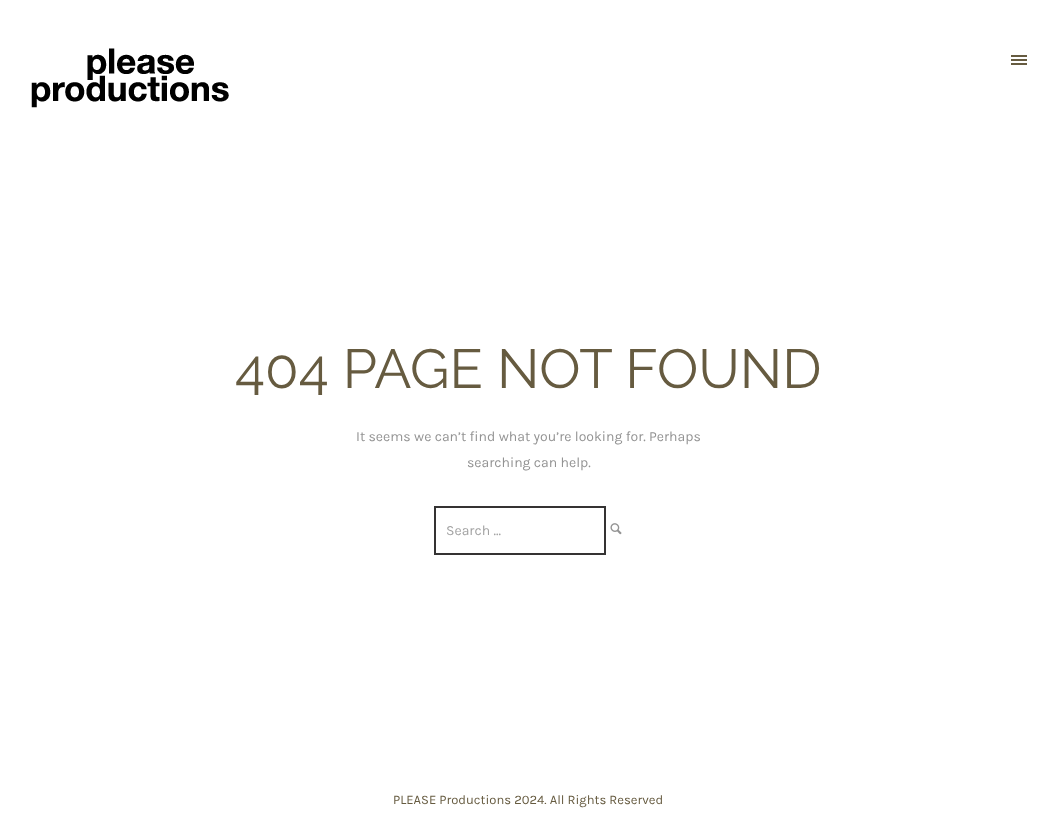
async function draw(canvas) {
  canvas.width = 1057;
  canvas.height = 830;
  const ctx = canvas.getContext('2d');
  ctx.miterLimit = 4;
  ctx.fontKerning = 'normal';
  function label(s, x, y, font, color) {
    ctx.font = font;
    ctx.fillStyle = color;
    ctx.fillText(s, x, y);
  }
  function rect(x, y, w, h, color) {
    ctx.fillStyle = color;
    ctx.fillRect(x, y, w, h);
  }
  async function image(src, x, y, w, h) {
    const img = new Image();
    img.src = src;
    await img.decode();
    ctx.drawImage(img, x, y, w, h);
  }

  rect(0, 0, 1057, 830, '#fff');
  await image('assets/img1.png', 31, 48, 198, 60);
  rect(1011, 55, 16, 2, '#665b40');
  rect(1011, 59, 16, 2, '#665b40');
  rect(1011, 63, 16, 2, '#665b40');
  label('404 PAGE NOT FOUND', 235, 388, '100 55px Raleway', '#665b40');
  label('It seems we can’t find what you’re looking for. Perhaps', 356, 441, '14px Karla', '#939393');
  label('searching can help.', 467, 467, '14px Karla', '#939393');
  ctx.strokeStyle = '#353333';
  ctx.lineWidth = 2;
  ctx.strokeRect(435, 507, 170, 47);
  label('Search ...', 446, 535, '14px Karla', '#a2a2a2');
  await image('assets/img2.png', 610, 523, 12, 12);
  label('PLEASE Productions 2024. All Rights Reserved', 393, 804, '13px Karla', '#665b40');
}

draw(document.querySelector('canvas'));
